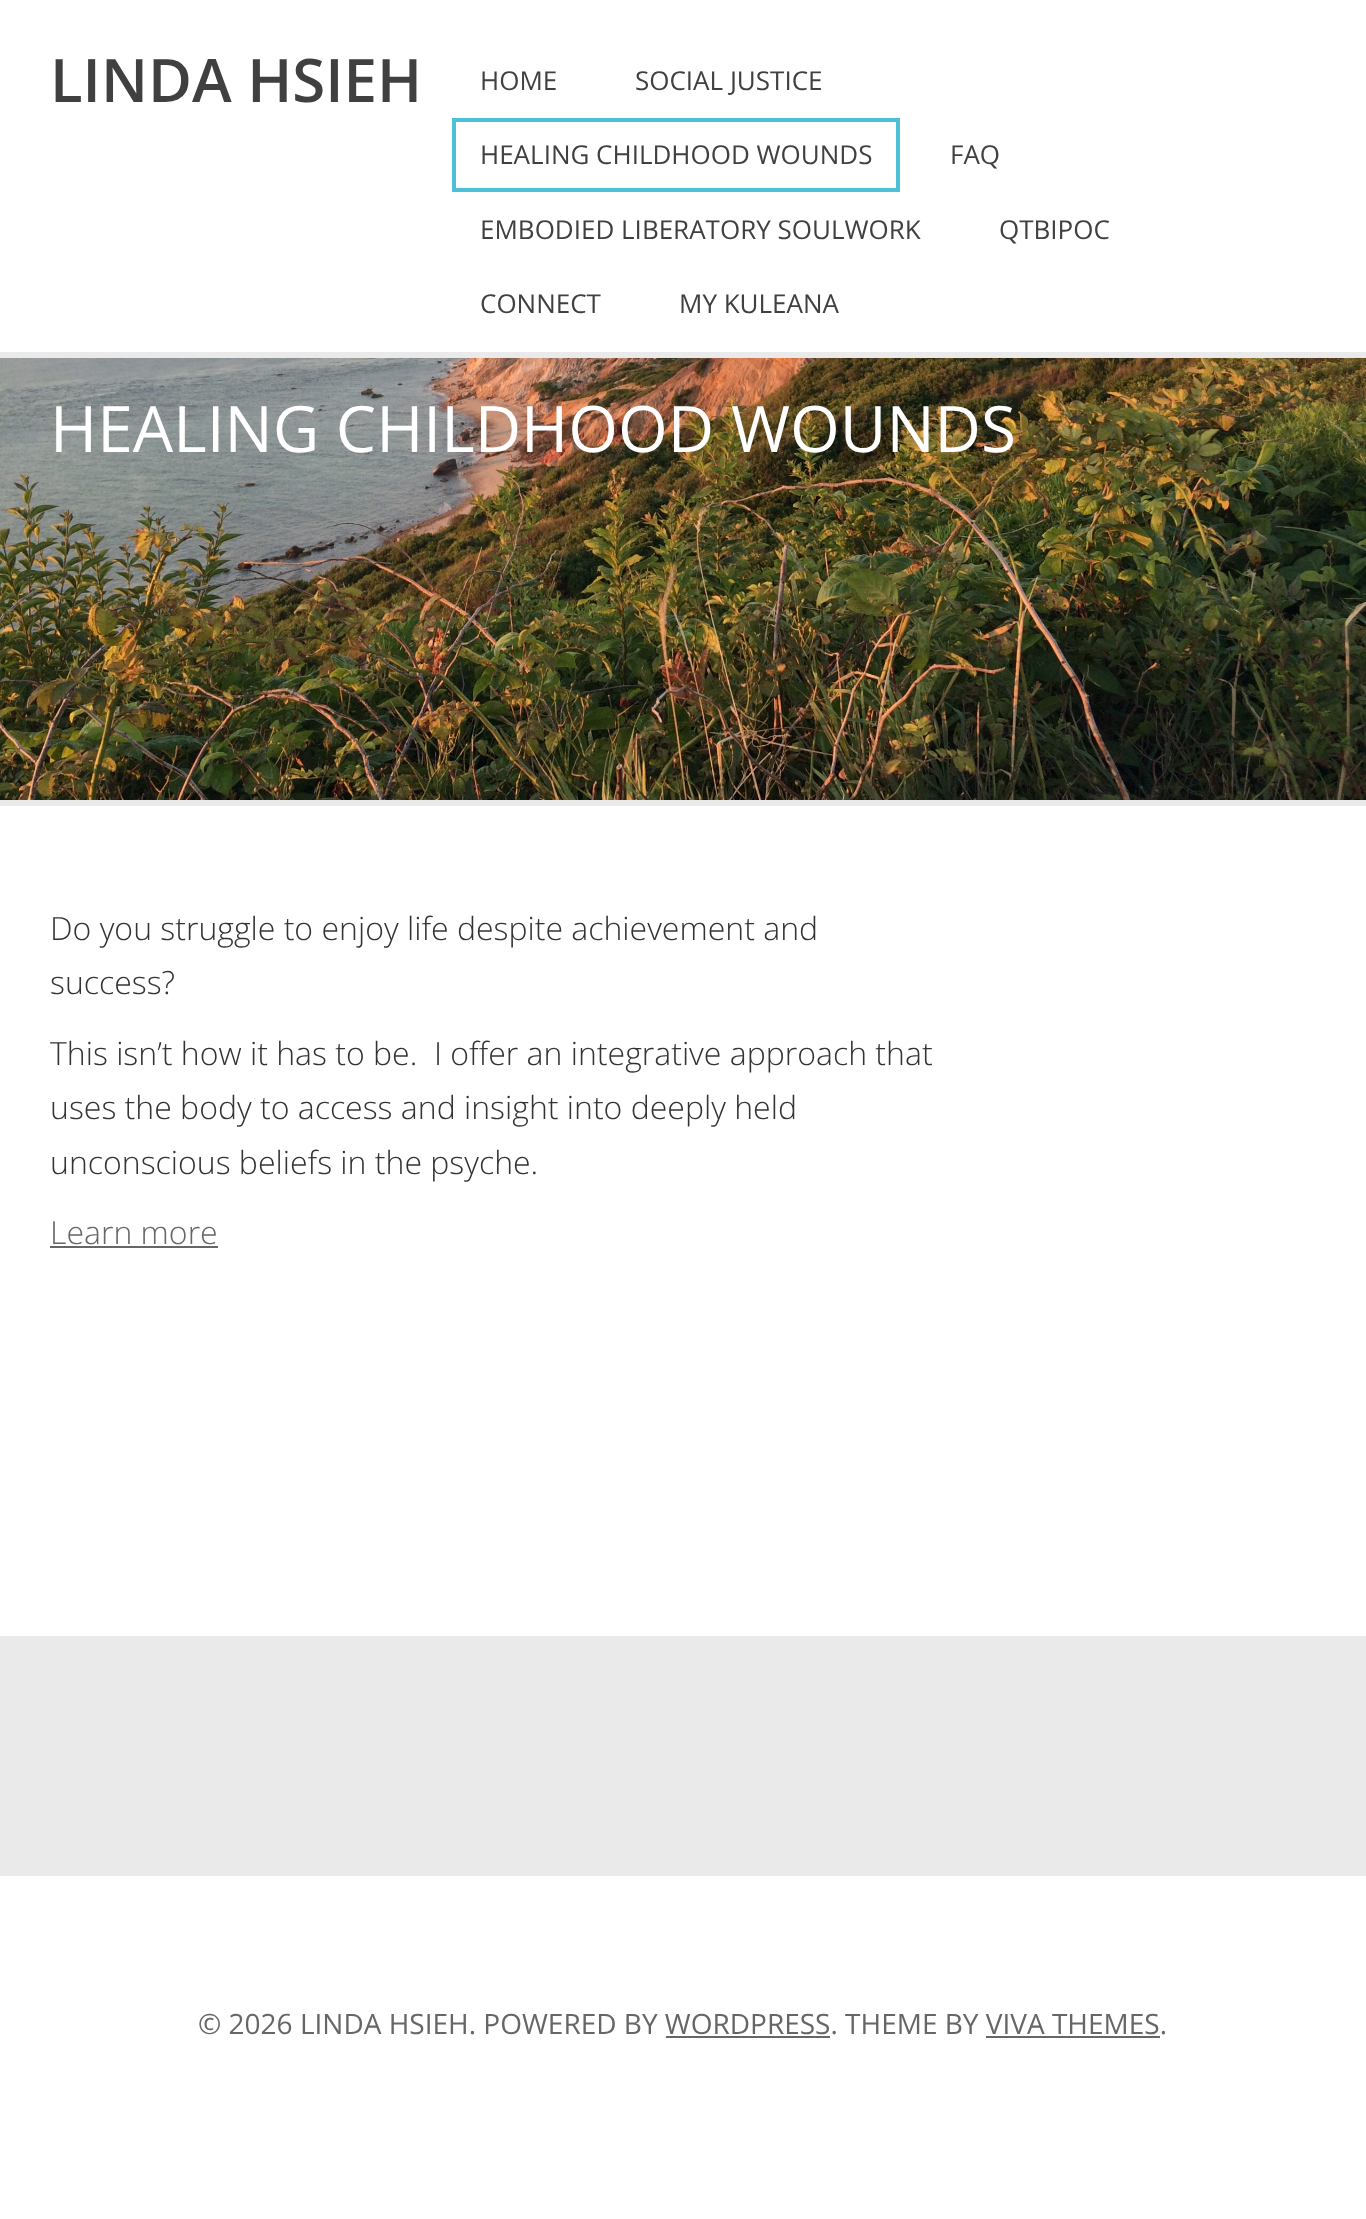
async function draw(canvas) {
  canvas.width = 1366;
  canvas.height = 2219;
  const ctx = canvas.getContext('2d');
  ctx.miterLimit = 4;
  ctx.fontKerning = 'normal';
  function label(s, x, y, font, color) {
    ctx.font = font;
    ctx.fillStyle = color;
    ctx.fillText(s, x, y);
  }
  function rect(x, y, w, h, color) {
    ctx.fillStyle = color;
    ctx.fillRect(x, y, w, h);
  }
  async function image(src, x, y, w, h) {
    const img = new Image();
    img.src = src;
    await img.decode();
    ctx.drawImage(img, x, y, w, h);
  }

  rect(0, 0, 1366, 2219, '#fff');
  rect(0, 352, 1366, 6, '#eaeaea');
  label('LINDA HSIEH', 50, 102, '600 60px Open Sans', '#404040');
  label('HOME', 480, 90, '26px Open Sans', '#404040');
  label('SOCIAL JUSTICE', 635, 90, '26px Open Sans', '#404040');
  ctx.strokeStyle = '#4dbfd9';
  ctx.lineWidth = 4;
  ctx.strokeRect(454, 120, 444, 70);
  label('HEALING CHILDHOOD WOUNDS', 480, 164, '26px Open Sans', '#404040');
  label('FAQ', 950, 164, '26px Open Sans', '#404040');
  label('EMBODIED LIBERATORY SOULWORK', 480, 239, '26px Open Sans', '#404040');
  label('QTBIPOC', 999, 239, '26px Open Sans', '#404040');
  label('CONNECT', 480, 313, '26px Open Sans', '#404040');
  label('MY KULEANA', 679, 313, '26px Open Sans', '#404040');
  await image('assets/img1.png', 0, 358, 1366, 442);
  label('HEALING CHILDHOOD WOUNDS', 50, 452, '64px Open Sans', '#fff');
  rect(0, 800, 1366, 6, '#eaeaea');
  label('Do you struggle to enjoy life despite achievement and', 50, 940, '300 32px Open Sans', '#333');
  label('success?', 50, 994, '300 32px Open Sans', '#333');
  label('This isn’t how it has to be.  I offer an integrative approach that', 50, 1065, '300 32px Open Sans', '#333');
  label('uses the body to access and insight into deeply held', 50, 1119, '300 32px Open Sans', '#333');
  label('unconscious beliefs in the psyche.', 50, 1174, '300 32px Open Sans', '#333');
  label('Learn more', 50, 1244, '300 32px Open Sans', '#666');
  rect(50, 1246, 168, 2, '#666');
  rect(0, 1636, 1366, 240, '#eaeaea');
  label('© 2026 LINDA HSIEH. POWERED BY WORDPRESS. THEME BY VIVA THEMES.', 198, 2034, '28px Open Sans', '#666');
  rect(666, 2036, 164, 2, '#666');
  rect(986, 2036, 174, 2, '#666');
}

draw(document.querySelector('canvas'));
